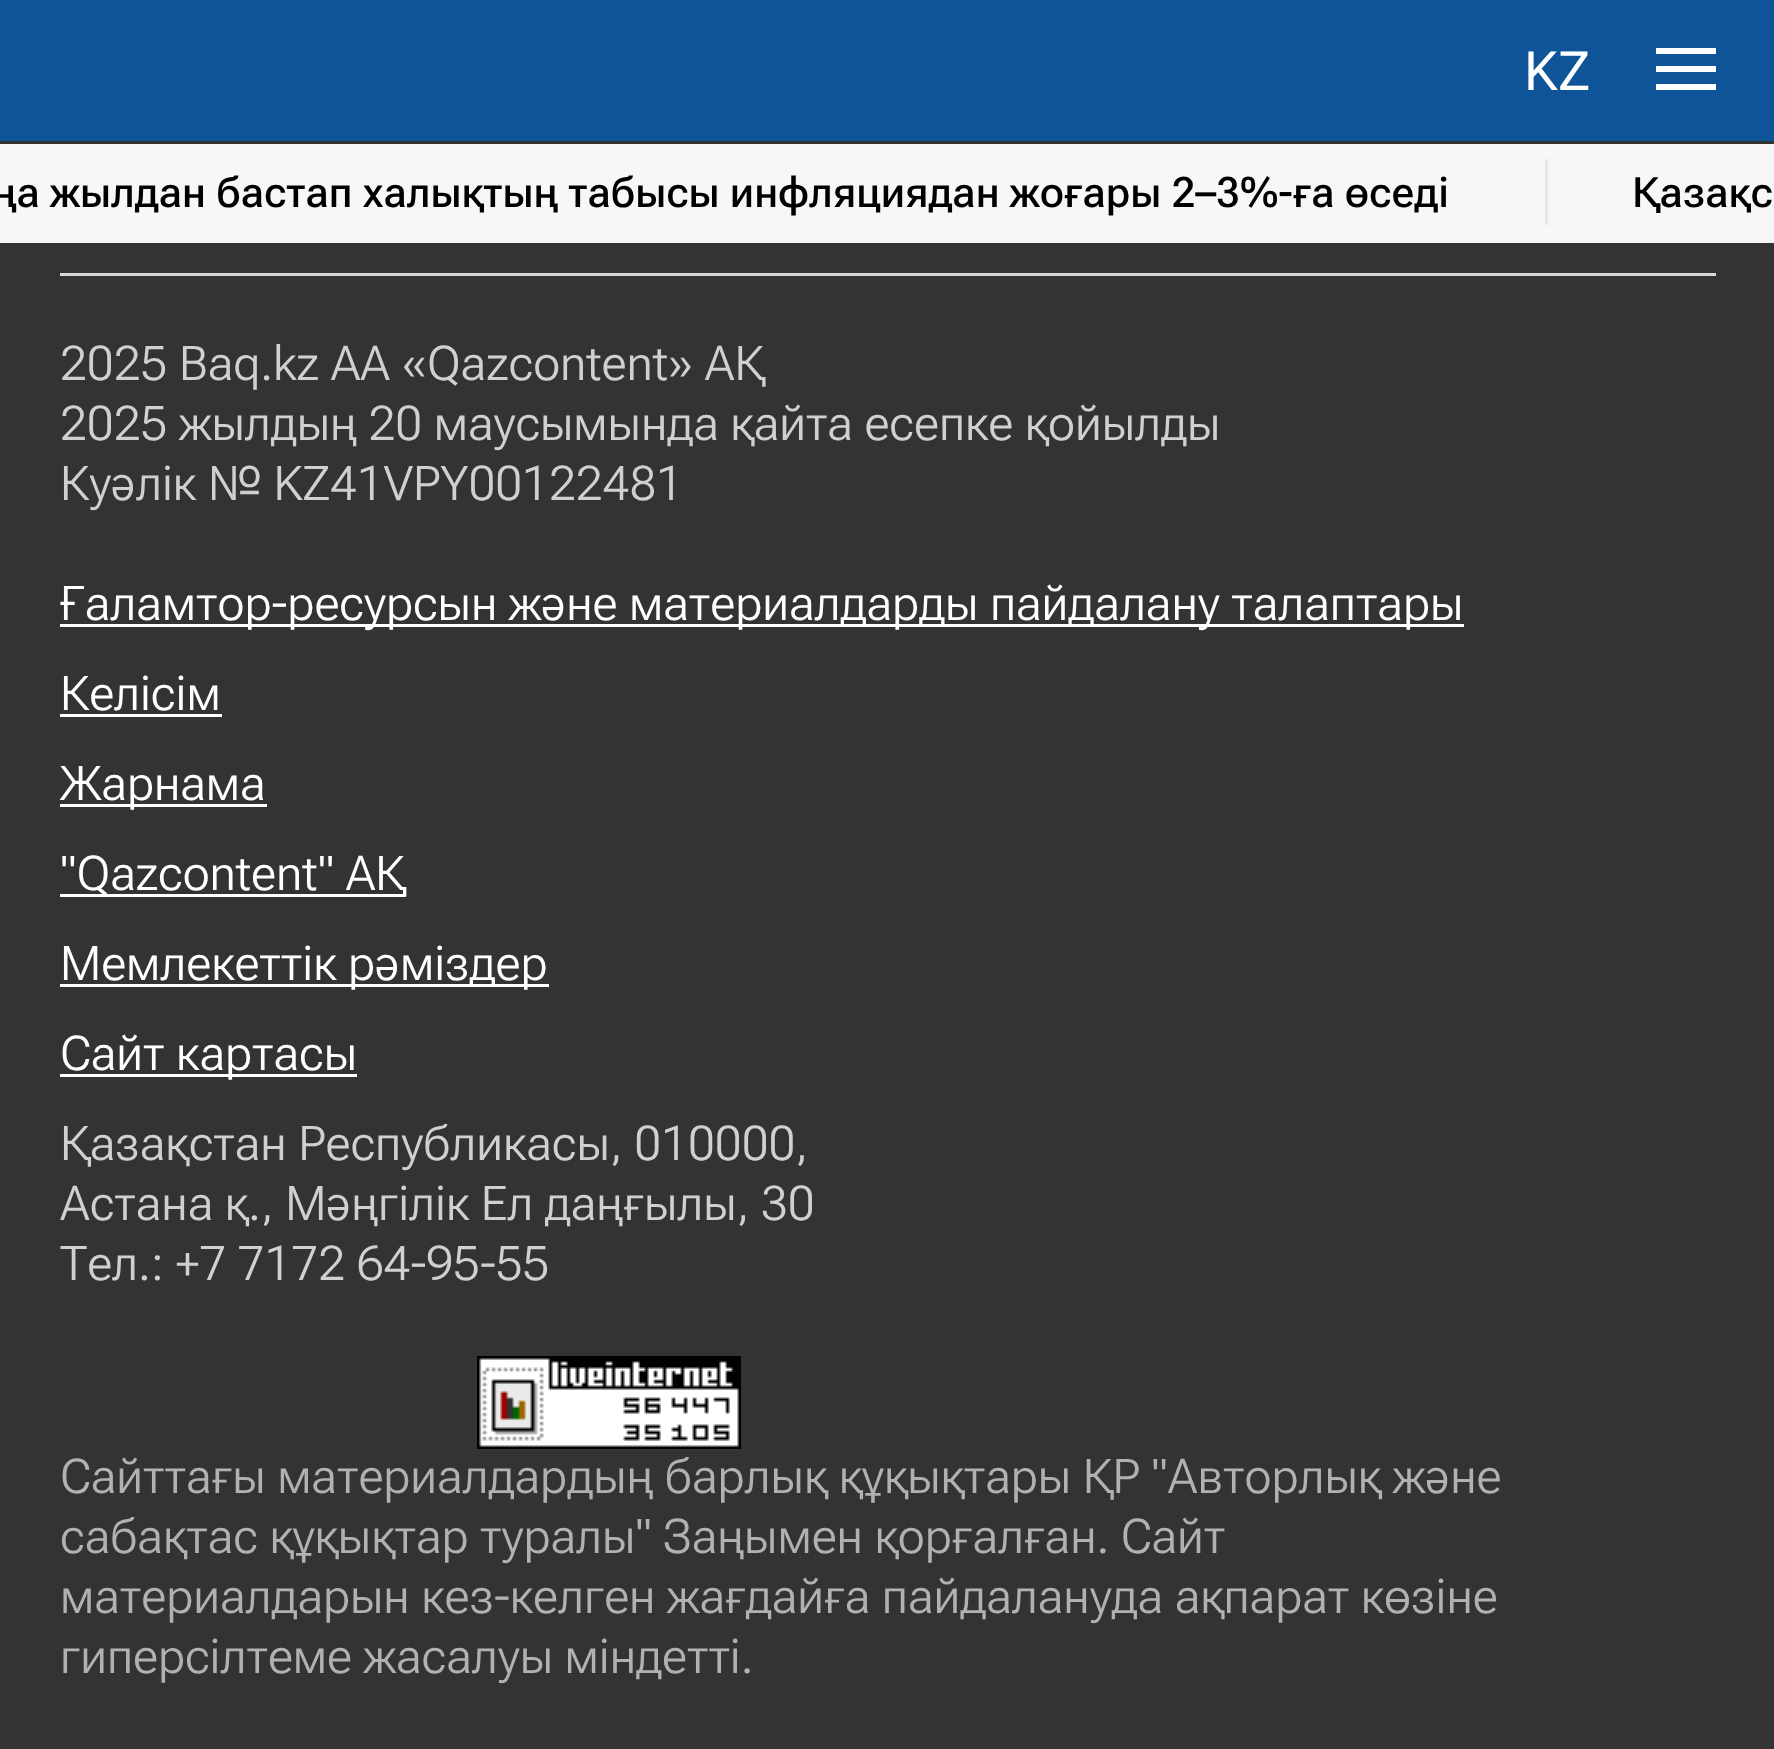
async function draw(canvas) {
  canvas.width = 1774;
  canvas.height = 1749;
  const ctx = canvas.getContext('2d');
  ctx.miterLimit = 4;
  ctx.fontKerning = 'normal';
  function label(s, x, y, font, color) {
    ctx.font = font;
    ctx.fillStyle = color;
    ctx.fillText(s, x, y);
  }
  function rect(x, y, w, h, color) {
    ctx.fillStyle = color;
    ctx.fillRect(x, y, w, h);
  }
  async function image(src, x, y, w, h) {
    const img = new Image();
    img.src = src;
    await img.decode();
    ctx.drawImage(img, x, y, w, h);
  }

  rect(0, 0, 1774, 1749, '#333');
  rect(0, 0, 1774, 141, '#0f5399');
  label('KZ', 1524, 90, '54px Roboto', '#fff');
  rect(1656, 66, 60, 6, '#fff');
  rect(1656, 48, 60, 6, '#fff');
  rect(1656, 84, 60, 6, '#fff');
  rect(0, 144, 1774, 99, '#f7f7f7');
  label('ңа жылдан бастап халықтың табысы инфляциядан жоғары 2–3%-ға өседі', -8, 207, 'italic 500 42px Roboto Flex', '#000');
  rect(1545, 159, 3, 66, '#e7e7e7');
  label('Қазақс', 1632, 207, 'italic 500 42px Roboto Flex', '#000');
  rect(60, 273, 1656, 3, '#d7d7d7');
  label('2025 Baq.kz АА «Qazcontent» АҚ', 60, 380, 'italic 300 48px Roboto Flex', '#d0d0d0');
  label('2025 жылдың 20 маусымында қайта есепке қойылды', 60, 440, 'italic 300 48px Roboto Flex', '#d0d0d0');
  label('Куәлік № KZ41VPY00122481', 60, 500, 'italic 300 48px Roboto Flex', '#d0d0d0');
  rect(60, 624, 1404, 3, '#fff');
  label('Ғаламтор-ресурсын және материалдарды пайдалану талаптары', 60, 620, 'italic 300 48px Roboto Flex', '#fff');
  label('Келісім', 60, 710, 'italic 300 48px Roboto Flex', '#fff');
  rect(60, 714, 162, 3, '#fff');
  rect(60, 804, 207, 3, '#fff');
  label('Жарнама', 60, 800, 'italic 300 48px Roboto Flex', '#fff');
  rect(60, 894, 345, 3, '#fff');
  label('"Qazcontent" АҚ', 60, 890, 'italic 300 48px Roboto Flex', '#fff');
  rect(60, 984, 489, 3, '#fff');
  label('Мемлекеттік рәміздер', 60, 980, 'italic 300 48px Roboto Flex', '#fff');
  rect(60, 1074, 297, 3, '#fff');
  label('Сайт картасы', 60, 1070, 'italic 300 48px Roboto Flex', '#fff');
  label('Қазақстан Республикасы, 010000,', 60, 1160, 'italic 300 48px Roboto Flex', '#d0d0d0');
  label('Астана қ., Мәңгілік Ел даңғылы, 30', 60, 1220, 'italic 300 48px Roboto Flex', '#d0d0d0');
  label('Тел.: +7 7172 64-95-55', 60, 1280, 'italic 300 48px Roboto Flex', '#d0d0d0');
  await image('assets/img1.png', 477, 1356, 264, 93);
  label('Сайттағы материалдардың барлық құқықтары ҚР "Авторлық және', 60, 1493, 'italic 300 48px Roboto Flex', '#b1b1b1');
  label('сабақтас құқықтар туралы" Заңымен қорғалған. Сайт', 60, 1553, 'italic 300 48px Roboto Flex', '#b1b1b1');
  label('материалдарын кез-келген жағдайға пайдалануда ақпарат көзіне', 60, 1613, 'italic 300 48px Roboto Flex', '#b1b1b1');
  label('гиперсілтеме жасалуы міндетті.', 60, 1673, 'italic 300 48px Roboto Flex', '#b1b1b1');
}

draw(document.querySelector('canvas'));
